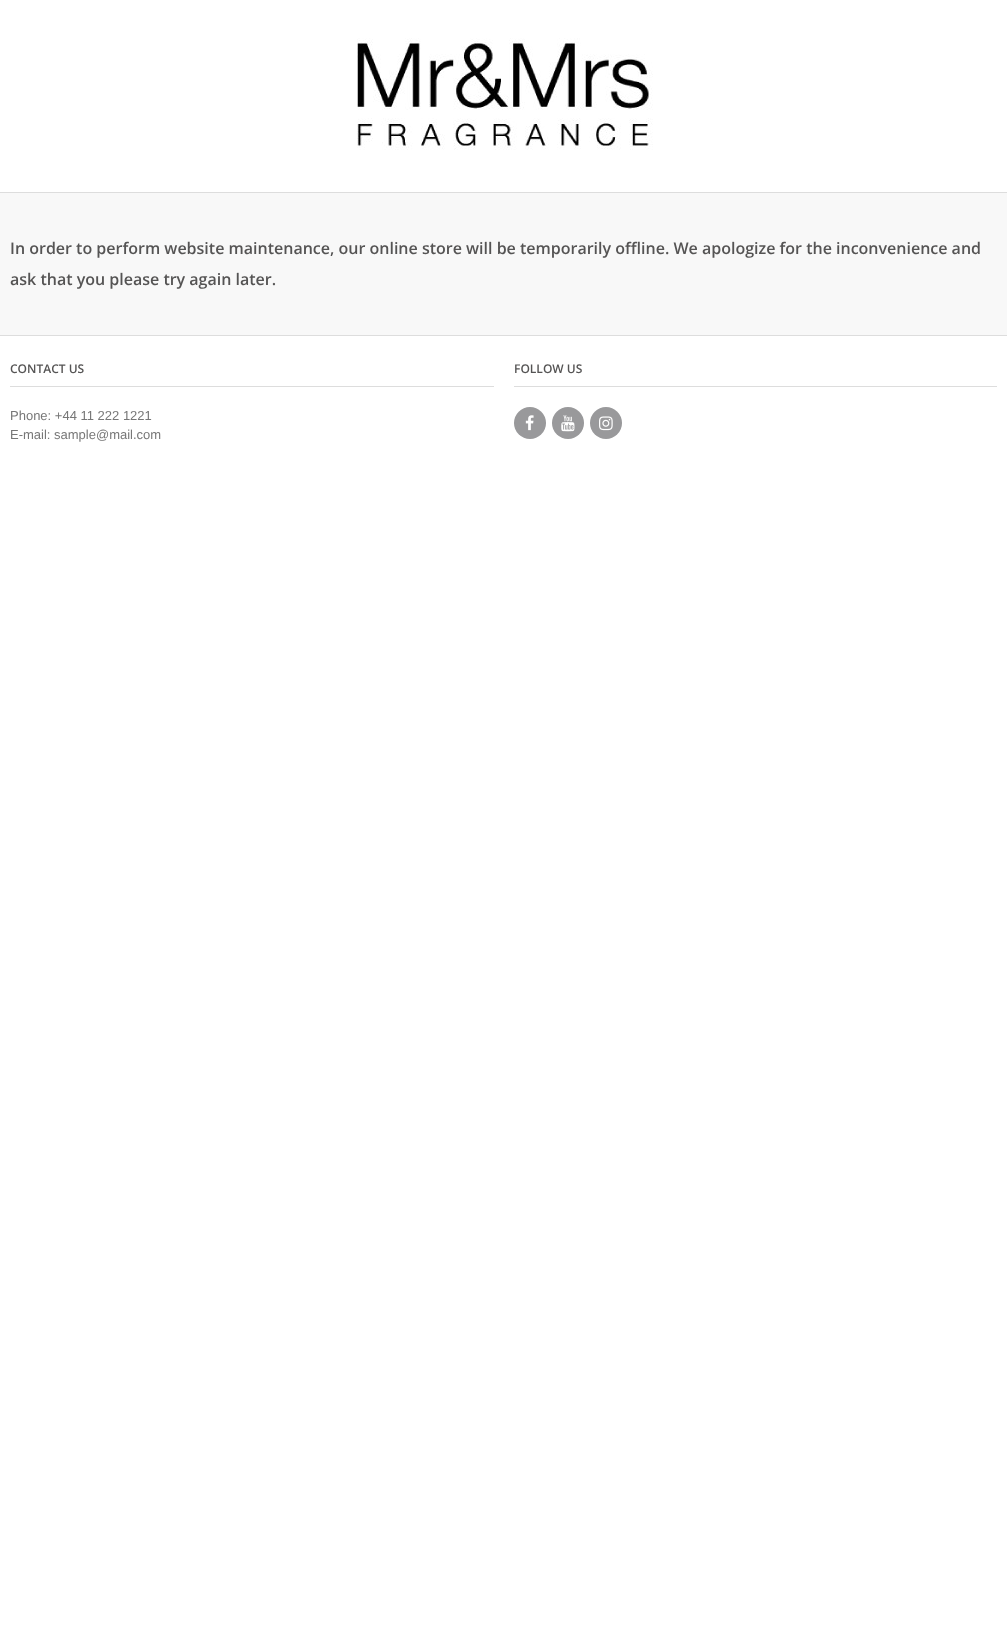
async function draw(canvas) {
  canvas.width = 1007;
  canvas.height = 1630;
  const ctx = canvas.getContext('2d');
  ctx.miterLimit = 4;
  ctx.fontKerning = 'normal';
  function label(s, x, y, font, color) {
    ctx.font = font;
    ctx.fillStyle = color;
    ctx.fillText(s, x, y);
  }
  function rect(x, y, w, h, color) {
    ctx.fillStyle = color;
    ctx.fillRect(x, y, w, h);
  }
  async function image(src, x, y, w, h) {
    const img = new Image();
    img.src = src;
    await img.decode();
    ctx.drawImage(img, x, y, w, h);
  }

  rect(0, 0, 1007, 1630, '#fff');
  await image('assets/img1.png', 357, 38, 296, 112);
  rect(0, 193, 1007, 142, '#f8f8f8');
  rect(0, 192, 1007, 1, '#ddd');
  rect(0, 335, 1007, 1, '#ddd');
  label('In order to perform website maintenance, our online store will be temporarily offline. We apologize for the inconvenience and', 10, 254, '600 16px Open Sans', '#555454');
  label('ask that you please try again later.', 10, 285, '600 16px Open Sans', '#555454');
  rect(10, 386, 484, 1, '#ddd');
  label('CONTACT US', 10, 373, '600 12px Open Sans', '#555454');
  label('Phone: +44 11 222 1221', 10, 420, '13px Liberation Sans', '#777');
  label('E-mail: sample@mail.com', 10, 439, '13px Liberation Sans', '#777');
  rect(514, 386, 483, 1, '#ddd');
  label('FOLLOW US', 514, 373, '600 12px Open Sans', '#555454');
  ctx.fillStyle = '#99999b';
  ctx.beginPath();
  ctx.arc(530, 423, 16, 0, 2 * Math.PI);
  ctx.fill();
  await image('assets/img2.png', 525, 415, 9, 16);
  ctx.beginPath();
  ctx.arc(568, 423, 16, 0, 2 * Math.PI);
  ctx.fill();
  await image('assets/img3.png', 561, 415, 14, 17);
  ctx.beginPath();
  ctx.arc(606, 423, 16, 0, 2 * Math.PI);
  ctx.fill();
  await image('assets/img4.png', 599, 416, 14, 15);
}

draw(document.querySelector('canvas'));
